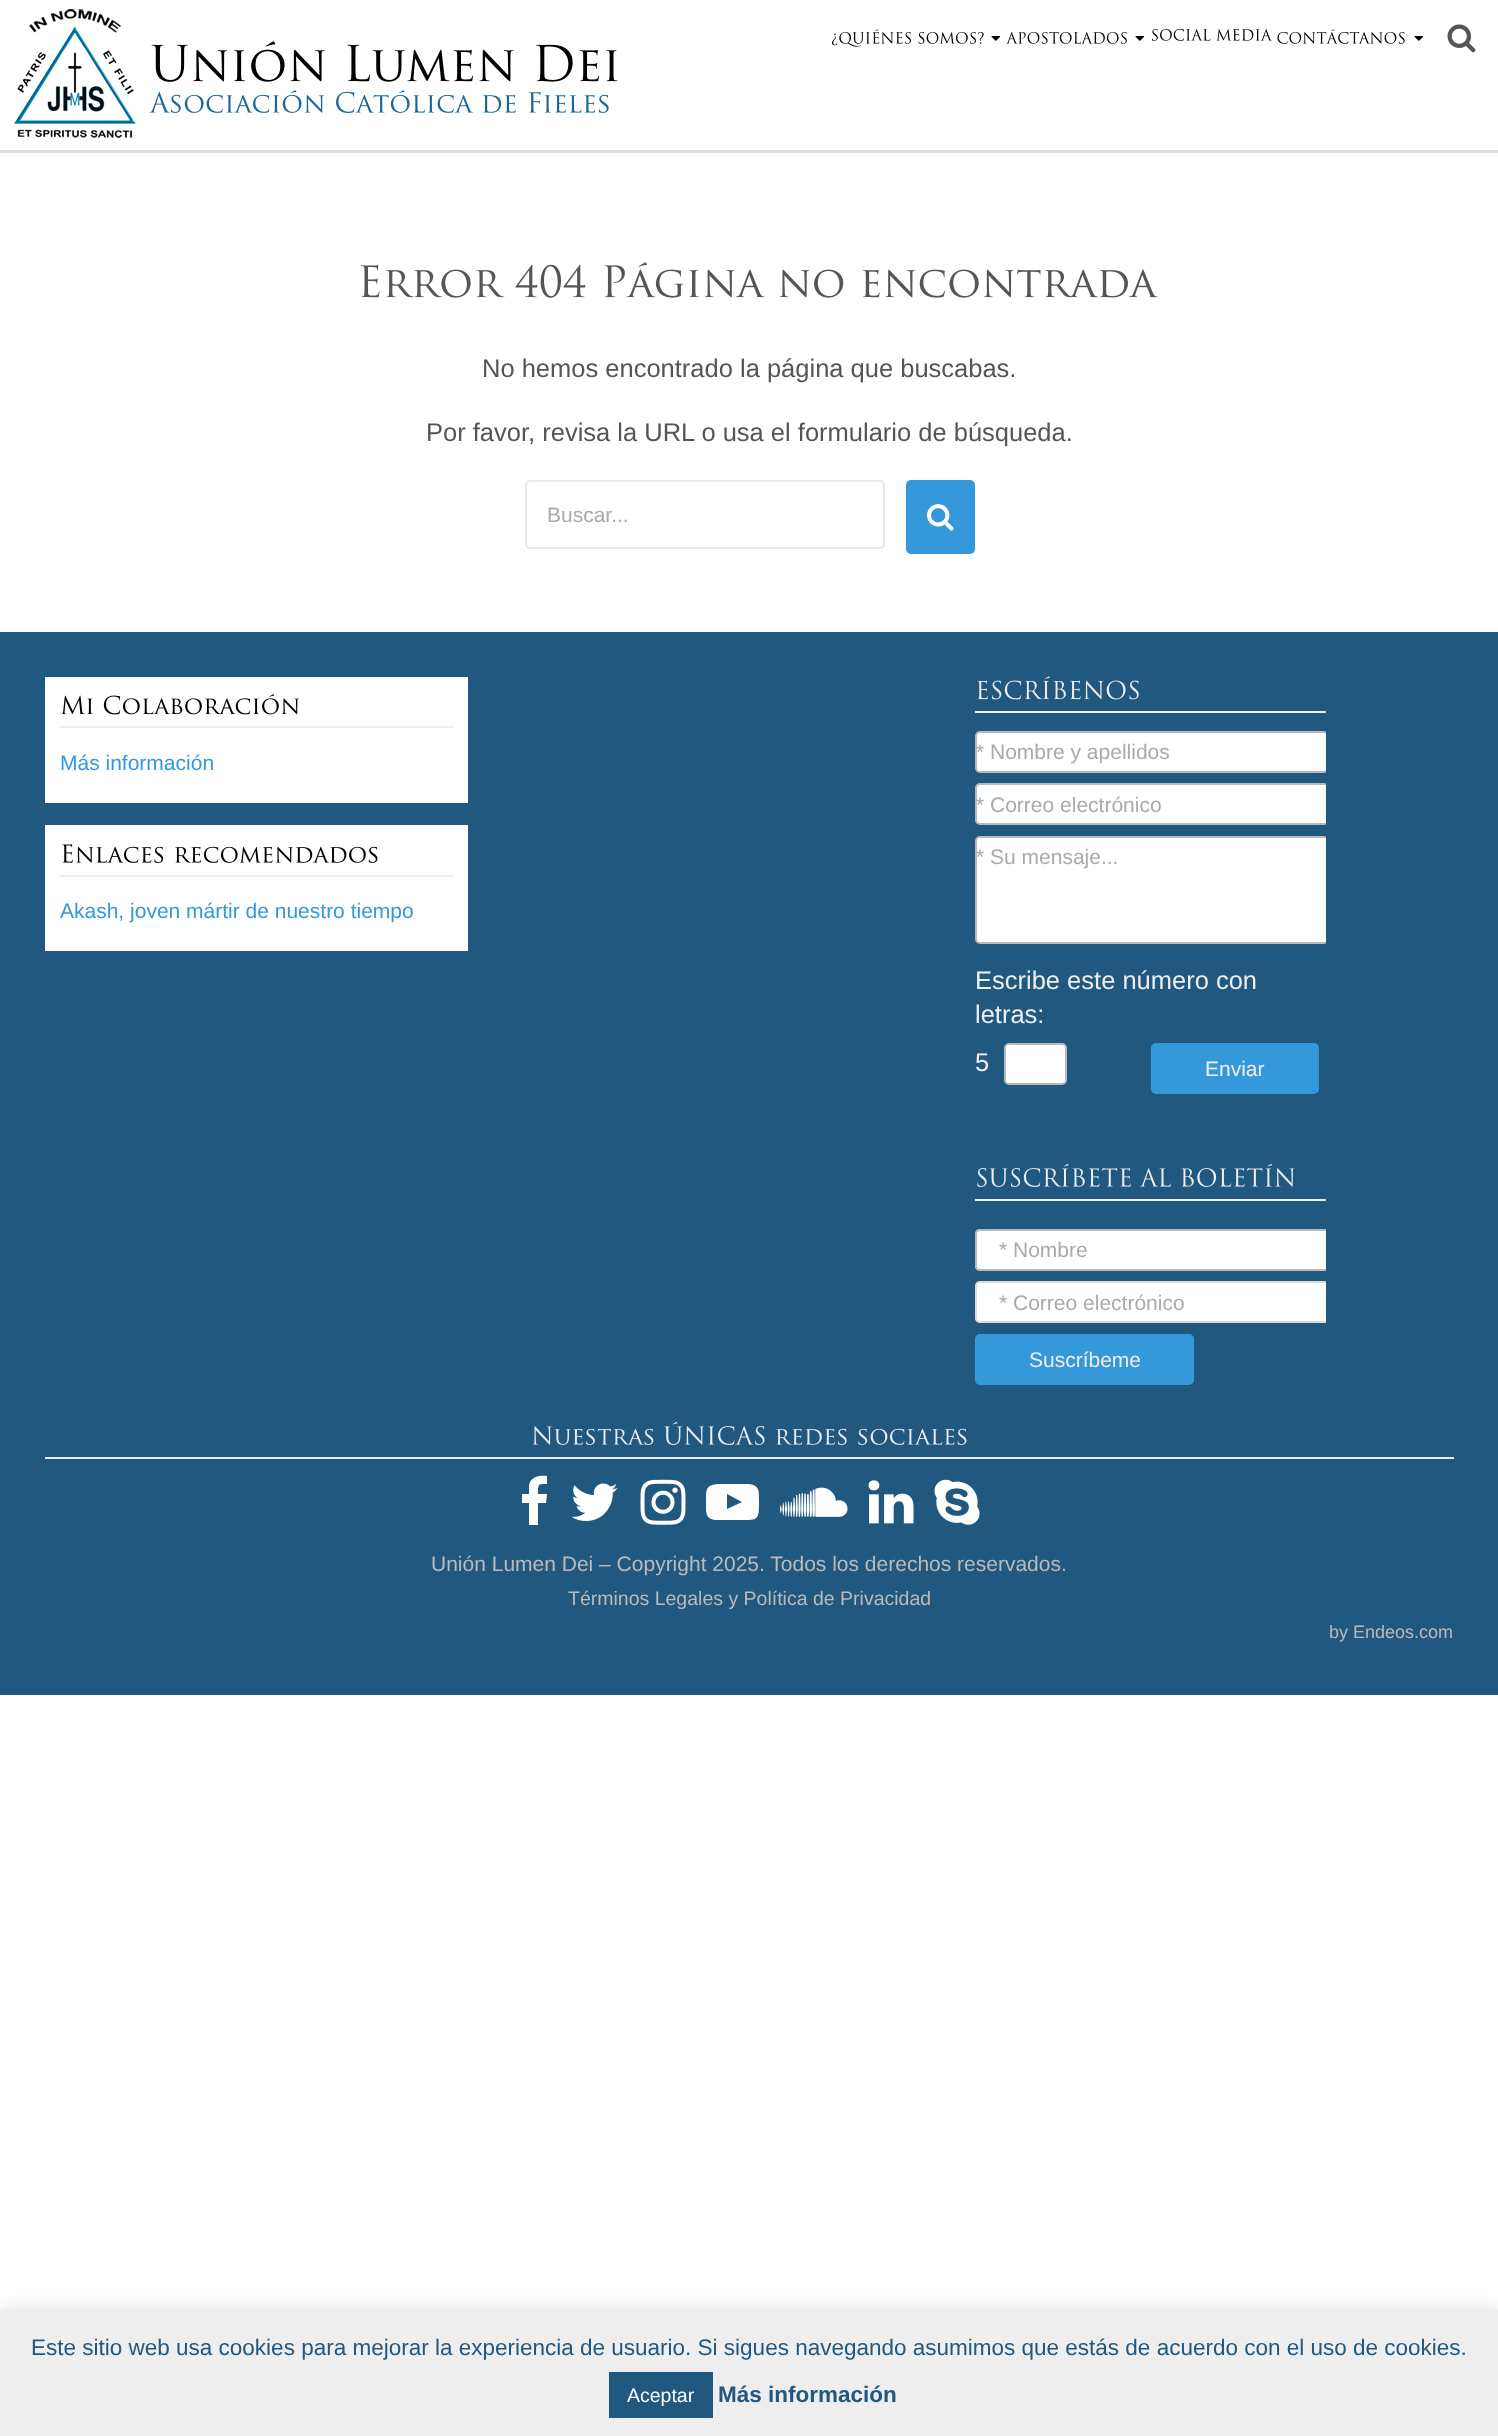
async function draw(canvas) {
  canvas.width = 1498;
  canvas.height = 2436;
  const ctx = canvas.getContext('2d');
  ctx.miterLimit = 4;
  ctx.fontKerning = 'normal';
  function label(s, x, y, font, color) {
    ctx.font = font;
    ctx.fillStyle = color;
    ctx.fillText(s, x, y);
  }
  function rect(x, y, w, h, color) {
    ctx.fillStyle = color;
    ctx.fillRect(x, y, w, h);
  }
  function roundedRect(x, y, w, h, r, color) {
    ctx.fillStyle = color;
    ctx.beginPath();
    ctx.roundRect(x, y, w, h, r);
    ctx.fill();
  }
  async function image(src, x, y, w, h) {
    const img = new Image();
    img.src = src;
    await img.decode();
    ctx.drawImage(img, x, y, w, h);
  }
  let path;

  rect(0, 0, 1498, 2436, '#fff');
  rect(0, 150, 1498, 3, '#ddd');
  await image('assets/img1.png', 14, 9, 122, 129);
  await image('assets/img2.png', 151, 41, 467, 41);
  await image('assets/img3.png', 149, 90, 460, 23);
  await image('assets/img4.png', 831, 29, 153, 18);
  await image('assets/img5.png', 991, 36, 9, 5);
  await image('assets/img6.png', 1006, 32, 121, 12);
  await image('assets/img5.png', 1135, 36, 9, 5);
  await image('assets/img7.png', 1152, 29, 120, 12);
  await image('assets/img8.png', 1277, 29, 128, 15);
  await image('assets/img5.png', 1414, 36, 9, 5);
  await image('assets/img9.png', 1447, 24, 29, 29);
  await image('assets/img10.png', 360, 262, 798, 36);
  label('No hemos encontrado la página que buscabas.', 482, 377, '25.5px Liberation Sans', '#555');
  label('Por favor, revisa la URL o usa el formulario de búsqueda.', 426, 441, '25.5px Liberation Sans', '#555');
  ctx.beginPath();
  ctx.roundRect(526, 481, 358, 67, 4);
  ctx.strokeStyle = '#e8e8e8';
  ctx.lineWidth = 2;
  ctx.stroke();
  label('Buscar...', 547, 522, '21px Liberation Sans', '#aaa');
  roundedRect(906, 480, 69, 74, 5, '#3498db');
  await image('assets/img11.png', 927, 504, 27, 27);
  rect(0, 632, 1498, 1063, '#21587f');
  rect(45, 677, 423, 126, '#fff');
  rect(60, 726, 393, 2, '#eee');
  await image('assets/img12.png', 61, 694, 238, 21);
  label('Más información', 60, 770, '21px Liberation Sans', '#3498db');
  rect(45, 825, 423, 126, '#fff');
  rect(60, 875, 393, 2, '#eee');
  await image('assets/img13.png', 62, 844, 316, 19);
  label('Akash, joven mártir de nuestro tiempo', 60, 918, '21px Liberation Sans', '#3498db');
  rect(975, 711, 351, 2, '#eee');
  await image('assets/img14.png', 977, 676, 162, 24);
  ctx.save();
  ctx.beginPath();
  ctx.rect(975, 731, 351, 42);
  ctx.clip();
  ctx.fillStyle = '#fff';
  ctx.beginPath();
  ctx.roundRect(976, 732, 352, 40, 4);
  ctx.fill();
  ctx.strokeStyle = '#bababa';
  ctx.stroke();
  ctx.restore();
  label('* Nombre y apellidos', 976, 759, '21px Liberation Sans', '#aaa');
  ctx.save();
  ctx.beginPath();
  ctx.rect(975, 783, 351, 42);
  ctx.clip();
  ctx.fillStyle = '#fff';
  ctx.beginPath();
  ctx.roundRect(976, 784, 352, 40, 4);
  ctx.fill();
  ctx.strokeStyle = '#bababa';
  ctx.stroke();
  ctx.restore();
  label('* Correo electrónico', 976, 812, '21px Liberation Sans', '#aaa');
  ctx.save();
  ctx.beginPath();
  ctx.rect(975, 836, 351, 117);
  ctx.clip();
  ctx.fillStyle = '#fff';
  ctx.beginPath();
  ctx.roundRect(976, 837, 352, 106, 4);
  ctx.fill();
  ctx.strokeStyle = '#bababa';
  ctx.stroke();
  ctx.restore();
  label('* Su mensaje...', 976, 864, '21px Liberation Sans', '#aaa');
  label('Escribe este número con', 975, 989, '25.5px Liberation Sans', '#eee');
  label('letras:', 975, 1023, '25.5px Liberation Sans', '#eee');
  label('5', 975, 1071, '25.5px Liberation Sans', '#eee');
  ctx.fillStyle = '#fff';
  ctx.beginPath();
  ctx.roundRect(1005, 1044, 61, 40, 4);
  ctx.fill();
  ctx.strokeStyle = '#bababa';
  ctx.stroke();
  ctx.fillStyle = '#3498db';
  ctx.beginPath();
  ctx.roundRect(1152, 1044, 166, 49, 4);
  ctx.fill();
  ctx.strokeStyle = '#3498db';
  ctx.stroke();
  label('Enviar', 1205, 1076, '21px Liberation Sans', '#eee');
  rect(975, 1199, 351, 2, '#eee');
  await image('assets/img15.png', 977, 1163, 318, 24);
  ctx.fillStyle = '#fff';
  ctx.beginPath();
  ctx.roundRect(975, 1229, 351, 42, [5, 0, 0, 5]);
  ctx.fill();
  ctx.save();
  ctx.beginPath();
  ctx.rect(975, 1229, 351, 42);
  ctx.clip();
  ctx.beginPath();
  ctx.roundRect(976, 1230, 397, 40, 4);
  ctx.strokeStyle = '#bababa';
  ctx.stroke();
  ctx.restore();
  label('* Nombre', 999, 1257, '21px Liberation Sans', '#aaa');
  ctx.fillStyle = '#fff';
  ctx.beginPath();
  ctx.roundRect(975, 1281, 351, 42, [5, 0, 0, 5]);
  ctx.fill();
  ctx.save();
  ctx.beginPath();
  ctx.rect(975, 1281, 351, 42);
  ctx.clip();
  ctx.beginPath();
  ctx.roundRect(976, 1282, 397, 40, 4);
  ctx.strokeStyle = '#bababa80';
  ctx.stroke();
  ctx.restore();
  label('* Correo electrónico', 999, 1310, '21px Liberation Sans', '#aaa');
  ctx.fillStyle = '#3498db';
  ctx.beginPath();
  ctx.roundRect(976, 1335, 217, 49, 4);
  ctx.fill();
  ctx.stroke();
  label('Suscríbeme', 1029, 1367, '21px Liberation Sans', '#eee');
  rect(45, 1457, 1409, 2, '#eee');
  await image('assets/img16.png', 532, 1421, 435, 24);
  ctx.fillStyle = '#fff';
  path = new Path2D('M547 1476V1484C538 1484 538 1484 538 1494H547L546 1503H538V1525H529V1503H522V1494H529V1485C531 1476 540 1475 547 1476Z');
  ctx.fill(path);
  await image('assets/img17.png', 571, 1483, 47, 38);
  await image('assets/img18.png', 640, 1479, 46, 46);
  path = new Path2D('M727 1509L742 1502L727 1494ZM733 1484H748C760 1485 759 1491 759 1502C759 1516 759 1520 747 1520H718C705 1520 706 1513 706 1502C706 1489 706 1485 718 1484Z');
  ctx.fill(path);
  await image('assets/img19.png', 780, 1487, 68, 30);
  await image('assets/img20.png', 868, 1480, 46, 44);
  await image('assets/img21.png', 934, 1479, 46, 46);
  label('Unión Lumen Dei – Copyright 2025. Todos los derechos reservados.', 431, 1571, '21px Liberation Sans', '#bababa');
  label('Términos Legales y Política de Privacidad', 568, 1605, '19.5px Liberation Sans', '#bababa');
  label('by Endeos.com', 1329, 1638, '18px Liberation Sans', '#bababa');
  ctx.fillStyle = '#acabab4d';
  ctx.filter = 'blur(7.5px)';
  ctx.beginPath();
  ctx.rect(0, 2307, 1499, 128);
  ctx.fill();
  ctx.filter = 'none';
  rect(0, 2309, 1498, 127, '#eee');
  label('Este sitio web usa cookies para mejorar la experiencia de usuario. Si sigues navegando asumimos que estás de acuerdo con el uso de cookies.', 31, 2355, '22.5px Liberation Sans', '#21587f');
  rect(609, 2372, 104, 46, '#21587f');
  label('Aceptar', 627, 2402, '19.5px Liberation Sans', '#fff');
  label('Más información', 718, 2402, 'bold 22.5px Liberation Sans', '#21587f');
}

draw(document.querySelector('canvas'));
